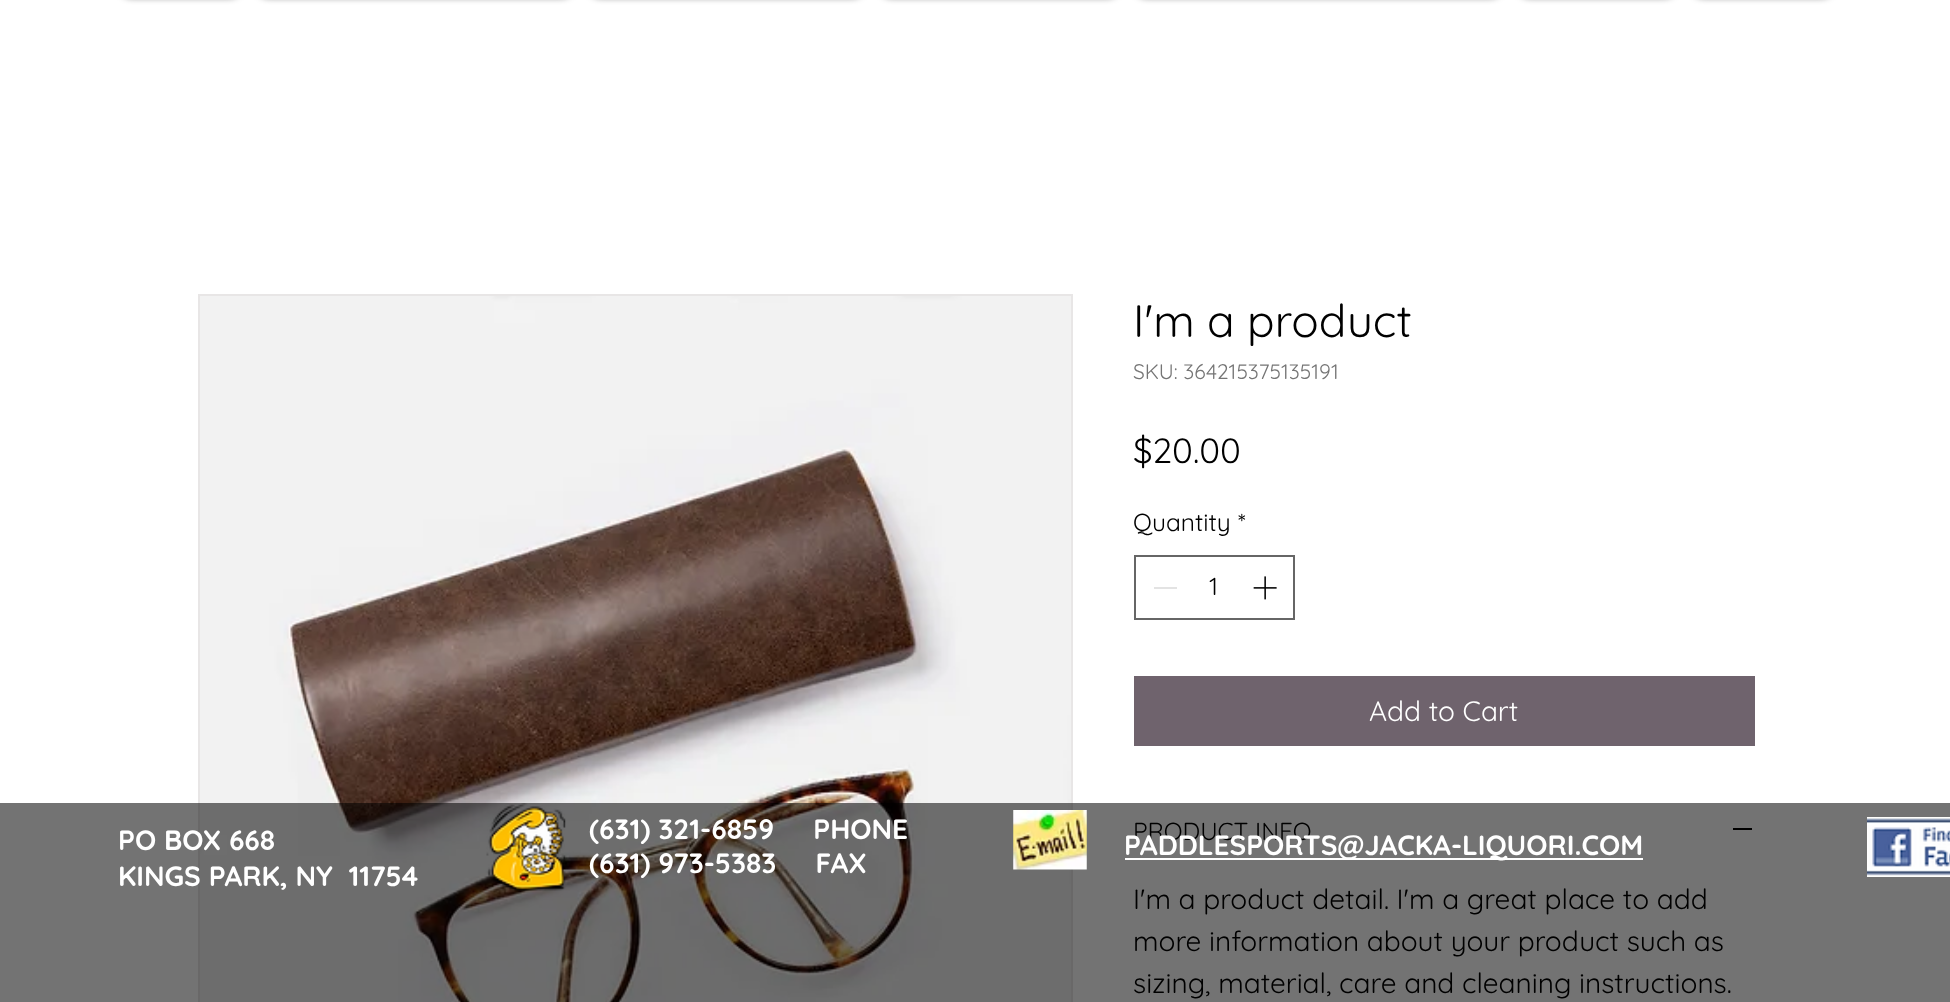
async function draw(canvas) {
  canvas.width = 1950;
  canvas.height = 1002;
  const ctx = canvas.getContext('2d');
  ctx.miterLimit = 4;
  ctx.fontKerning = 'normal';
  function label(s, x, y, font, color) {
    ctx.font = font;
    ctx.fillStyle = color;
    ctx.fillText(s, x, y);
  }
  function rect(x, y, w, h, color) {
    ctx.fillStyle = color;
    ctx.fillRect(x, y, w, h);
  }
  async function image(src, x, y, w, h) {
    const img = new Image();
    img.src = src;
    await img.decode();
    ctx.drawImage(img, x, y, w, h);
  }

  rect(0, 0, 1950, 1002, '#fff');
  ctx.fillStyle = '#00000099';
  ctx.filter = 'blur(3.5px)';
  ctx.beginPath();
  ctx.roundRect(119, -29, 123, 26, 18);
  ctx.fill();
  ctx.filter = 'none';
  ctx.filter = 'blur(3.5px)';
  ctx.beginPath();
  ctx.roundRect(256, -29, 318, 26, 18);
  ctx.fill();
  ctx.filter = 'none';
  ctx.filter = 'blur(3.5px)';
  ctx.beginPath();
  ctx.roundRect(588, -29, 277, 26, 18);
  ctx.fill();
  ctx.filter = 'none';
  ctx.filter = 'blur(3.5px)';
  ctx.beginPath();
  ctx.roundRect(879, -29, 241, 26, 18);
  ctx.fill();
  ctx.filter = 'none';
  ctx.filter = 'blur(3.5px)';
  ctx.beginPath();
  ctx.roundRect(1134, -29, 369, 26, 18);
  ctx.fill();
  ctx.filter = 'none';
  ctx.filter = 'blur(3.5px)';
  ctx.beginPath();
  ctx.roundRect(1517, -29, 160, 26, 18);
  ctx.fill();
  ctx.filter = 'none';
  ctx.filter = 'blur(3.5px)';
  ctx.beginPath();
  ctx.roundRect(1691, -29, 143, 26, 18);
  ctx.fill();
  ctx.filter = 'none';
  ctx.strokeStyle = '#e8e6e6';
  ctx.lineWidth = 2;
  ctx.strokeRect(199, 295, 873, 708);
  await image('assets/img1.png', 200, 296, 871, 706);
  label('I\'m a product', 1133, 337, '45.5px Quicksand', '#000');
  label('SKU: 364215375135191', 1133, 379, '21px Quicksand', '#757575');
  label('$20.00', 1133, 463, '35px Quicksand', '#000');
  label('Quantity', 1133, 531, '24.5px Quicksand', '#000');
  label('*', 1238, 531, '24.5px Quicksand', '#000');
  ctx.strokeStyle = '#666';
  ctx.strokeRect(1135, 556, 159, 63);
  rect(1154, 587, 23, 2, '#e3e3e3');
  label('1', 1209, 595, '24.5px Quicksand', '#000');
  await image('assets/img2.png', 1253, 576, 24, 24);
  rect(1134, 676, 621, 70, '#6f636d');
  label('Add to Cart', 1369, 721, '28px Quicksand', '#fff');
  label('PRODUCT INFO', 1133, 840, '24.5px Quicksand', '#000');
  rect(1733, 828, 19, 2, '#000');
  label('I\'m a product detail. I\'m a great place to add', 1133, 909, '28px Quicksand', '#000');
  label('more information about your product such as', 1133, 951, '28px Quicksand', '#000');
  label('sizing, material, care and cleaning instructions.', 1133, 993, '28px Quicksand', '#000');
  rect(0, 803, 1950, 199, '#0000008c');
  label('PO BOX 668', 118, 850, 'bold 28px Quicksand', '#fff');
  label('KINGS PARK, NY  11754', 118, 886, 'bold 28px Quicksand', '#fff');
  await image('assets/img3.png', 486, 803, 80, 88);
  label('(631) 321-6859     PHONE', 589, 839, 'bold 28px Quicksand', '#fff');
  label('(631) 973-5383     FAX', 589, 873, 'bold 28px Quicksand', '#fff');
  await image('assets/img4.png', 1013, 810, 74, 60);
  rect(1125, 858, 518, 2, '#fff');
  label('PADDLESPORTS@JACKA-LIQUORI.COM', 1124, 855, 'bold 28px Quicksand', '#fff');
  await image('assets/img5.png', 1867, 817, 83, 60);
}

draw(document.querySelector('canvas'));
